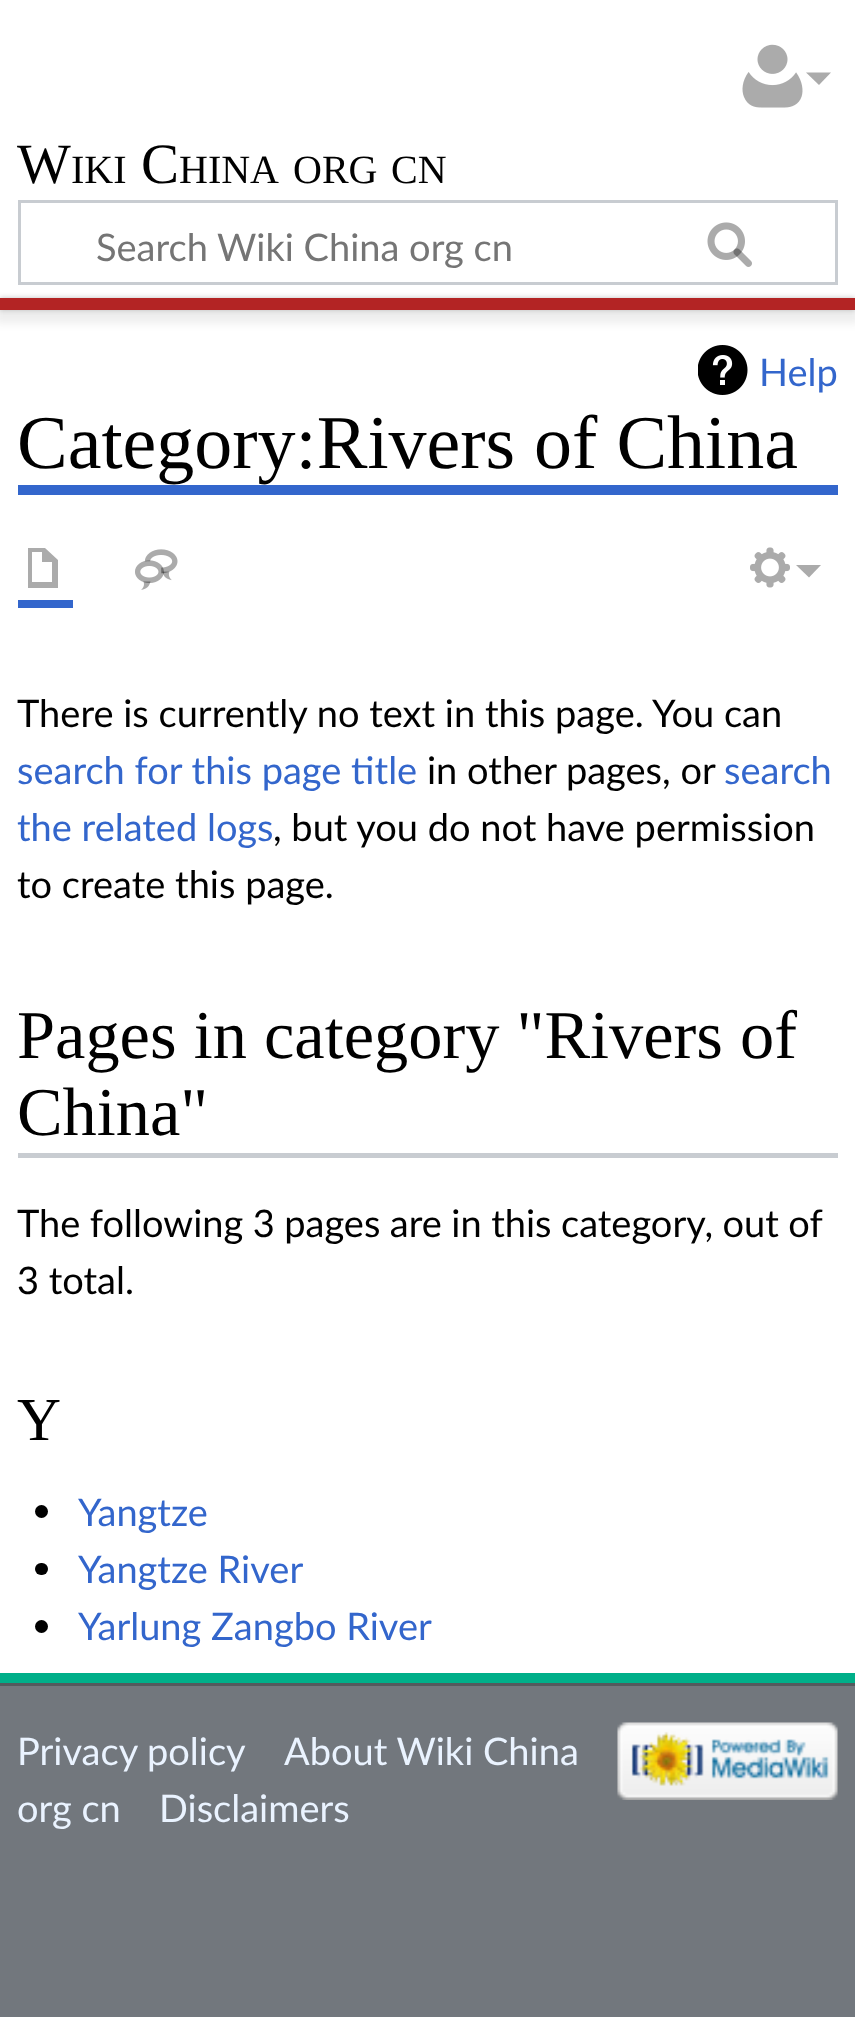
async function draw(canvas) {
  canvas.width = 855;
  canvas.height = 2017;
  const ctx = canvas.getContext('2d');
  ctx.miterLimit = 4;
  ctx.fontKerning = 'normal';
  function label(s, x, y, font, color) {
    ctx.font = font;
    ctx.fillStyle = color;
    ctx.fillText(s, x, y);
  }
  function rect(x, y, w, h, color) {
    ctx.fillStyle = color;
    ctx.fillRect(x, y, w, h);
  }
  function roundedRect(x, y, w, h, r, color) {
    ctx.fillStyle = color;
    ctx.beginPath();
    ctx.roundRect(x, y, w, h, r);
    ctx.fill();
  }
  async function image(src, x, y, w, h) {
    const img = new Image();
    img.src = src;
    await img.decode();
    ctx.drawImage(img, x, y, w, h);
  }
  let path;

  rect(0, 0, 855, 2017, '#72777d');
  rect(0, 0, 855, 298, '#fff');
  await image('assets/img1.png', 742, 44, 61, 64);
  ctx.fillStyle = '#ababab';
  path = new Path2D('M831 72.5L819 85L806 72.5Z');
  ctx.fill(path);
  label('W', 17, 183, '57px Liberation Serif', '#000');
  label('IKI', 71, 183, '40px Liberation Serif', '#000');
  label('C', 141, 183, '57px Liberation Serif', '#000');
  label('HINA', 179, 183, '40px Liberation Serif', '#000');
  label('ORG', 293, 183, '40px Liberation Serif', '#000');
  label('CN', 391, 183, '40px Liberation Serif', '#000');
  ctx.strokeStyle = '#c8ccd1';
  ctx.lineWidth = 3;
  ctx.strokeRect(19.5, 201.5, 817, 82);
  label('Search Wiki China org cn', 96, 261, '38px Lato', '#757575');
  await image('assets/img2.png', 707, 222, 45, 45);
  rect(0, 310, 855, 1363, '#fff');
  ctx.fillStyle = '#00000033';
  ctx.filter = 'blur(2.5px)';
  ctx.beginPath();
  ctx.rect(0, 298, 855, 12);
  ctx.fill();
  ctx.filter = 'none';
  ctx.fillStyle = '#00000012';
  ctx.filter = 'blur(4px)';
  ctx.beginPath();
  ctx.rect(-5, 300, 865, 23);
  ctx.fill();
  ctx.filter = 'none';
  rect(0, 298, 855, 12, '#b32424');
  rect(0, 1673, 855, 10, '#00af89');
  await image('assets/img3.png', 698, 345, 50, 50);
  label('Help', 759, 386, '38px Lato', '#36c');
  rect(18, 485, 820, 10, '#36c');
  label('Category:Rivers of China', 17, 468, '76px Liberation Serif', '#000');
  rect(18, 600, 55, 8, '#36c');
  ctx.fillStyle = '#ababab';
  path = new Path2D('M28 548V588H58V560L45 548ZM32 552H42V562H52V582H32Z');
  ctx.fill(path);
  await image('assets/img4.png', 135, 549, 43, 41);
  await image('assets/img5.png', 750, 547, 40, 41);
  path = new Path2D('M821 565L809 577.5L796 565Z');
  ctx.fill(path);
  label('There is currently no text in this page. You can', 17, 727, '38px Lato', '#000');
  label('search for this page title', 17, 784, '38px Lato', '#36c');
  label('in other pages, or', 427, 784, '38px Lato', '#000');
  label('search', 724, 784, '38px Lato', '#36c');
  label('the related logs', 17, 841, '38px Lato', '#36c');
  label(', but you do not have permission', 273, 841, '38px Lato', '#000');
  label('to create this page.', 17, 898, '38px Lato', '#000');
  rect(18, 1153, 820, 5, '#c8ccd1');
  label('Pages in category "Rivers of', 17, 1058, '68.4px Liberation Serif', '#000');
  label('China"', 17, 1135, '68.4px Liberation Serif', '#000');
  ctx.wordSpacing = '-0.25px';
  label('The following 3 pages are in this category, out of', 17, 1237, '38px Lato', '#000');
  ctx.wordSpacing = '0px';
  label('3 total.', 17, 1294, '38px Lato', '#000');
  label('Y', 17, 1440, '61px Liberation Serif', '#000');
  ctx.beginPath();
  ctx.arc(41.5, 1511.5, 6.5, 0, 2 * Math.PI);
  ctx.fill();
  label('Yangtze', 78, 1526, '38px Lato', '#36c');
  roundedRect(35, 1563, 13, 12, 6, '#000');
  label('Yangtze River', 78, 1583, '38px Lato', '#36c');
  ctx.fillStyle = '#000';
  ctx.beginPath();
  ctx.arc(41.5, 1626.5, 6.5, 0, 2 * Math.PI);
  ctx.fill();
  label('Yarlung Zangbo River', 78, 1640, '38px Lato', '#36c');
  rect(0, 1683, 855, 3, '#54595d');
  label('Privacy policy', 17, 1765, '38px Lato', '#eaf3ff');
  label('About Wiki China', 284, 1765, '38px Lato', '#eaf3ff');
  label('org cn', 17, 1822, '38px Lato', '#eaf3ff');
  label('Disclaimers', 159, 1822, '38px Lato', '#eaf3ff');
  await image('assets/img6.png', 617, 1722, 221, 78);
}

draw(document.querySelector('canvas'));
